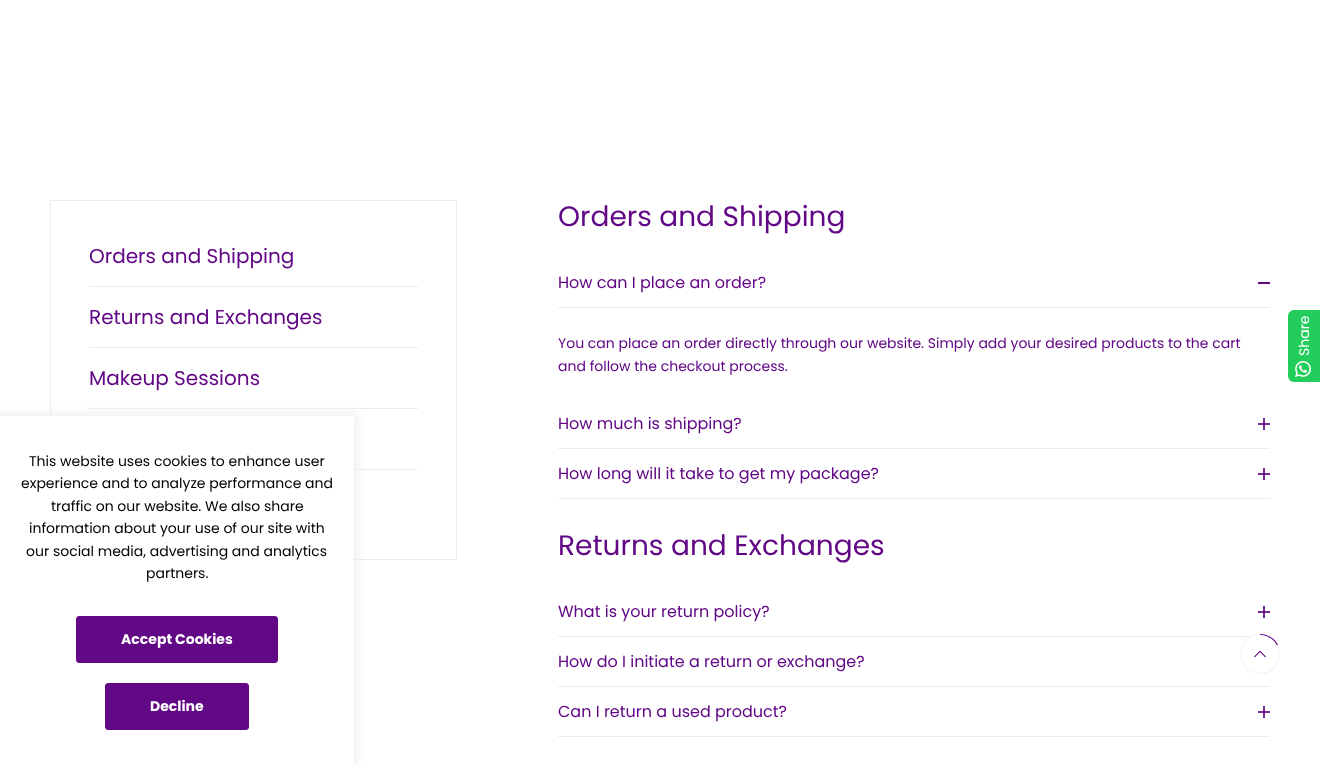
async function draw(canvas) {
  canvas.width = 1320;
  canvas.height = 764;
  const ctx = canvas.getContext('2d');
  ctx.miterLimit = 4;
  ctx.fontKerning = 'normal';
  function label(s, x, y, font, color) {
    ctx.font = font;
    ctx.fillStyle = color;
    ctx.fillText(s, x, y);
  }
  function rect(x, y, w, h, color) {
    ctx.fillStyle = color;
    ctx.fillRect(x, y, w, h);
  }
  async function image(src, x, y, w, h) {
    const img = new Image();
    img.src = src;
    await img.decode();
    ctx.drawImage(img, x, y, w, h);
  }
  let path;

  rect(0, 0, 1320, 764, '#fff');
  ctx.strokeStyle = '#ebebeb';
  ctx.strokeRect(50.5, 200.5, 406, 359);
  rect(89, 286, 329, 1, '#ebebeb');
  label('Orders and Shipping', 89, 263, '20px Poppins', '#620886');
  rect(89, 347, 329, 1, '#ebebeb');
  label('Returns and Exchanges', 89, 324, '20px Poppins', '#620886');
  rect(89, 408, 329, 1, '#ebebeb');
  label('Makeup Sessions', 89, 385, '20px Poppins', '#620886');
  rect(354, 469, 64, 1, '#ebebeb');
  label('Orders and Shipping', 558, 226, '28px Poppins', '#620886');
  rect(558, 307, 712, 1, '#ebebeb');
  label('How can I place an order?', 558, 288, '16px Poppins', '#620886');
  rect(1258, 282, 12, 2, '#620886');
  label('You can place an order directly through our website. Simply add your desired products to the cart', 558, 348, '14px Poppins', '#620886');
  label('and follow the checkout process.', 558, 371, '14px Poppins', '#620886');
  rect(558, 448, 712, 1, '#ebebeb');
  label('How much is shipping?', 558, 429, '16px Poppins', '#620886');
  await image('assets/img1.png', 1258, 418, 12, 12);
  rect(558, 498, 712, 1, '#ebebeb');
  label('How long will it take to get my package?', 558, 479, '16px Poppins', '#620886');
  await image('assets/img1.png', 1258, 468, 12, 12);
  label('Returns and Exchanges', 558, 555, '28px Poppins', '#620886');
  rect(558, 636, 712, 1, '#ebebeb');
  label('What is your return policy?', 558, 617, '16px Poppins', '#620886');
  await image('assets/img1.png', 1258, 606, 12, 12);
  rect(558, 686, 712, 1, '#ebebeb');
  label('How do I initiate a return or exchange?', 558, 667, '16px Poppins', '#620886');
  rect(558, 736, 712, 1, '#ebebeb');
  label('Can I return a used product?', 558, 717, '16px Poppins', '#620886');
  await image('assets/img1.png', 1258, 706, 12, 12);
  ctx.fillStyle = '#22cd5b';
  ctx.beginPath();
  ctx.roundRect(1288, 310, 32, 72, [6, 0, 0, 6]);
  ctx.fill();
  ctx.font = '14px Poppins';
  ctx.fillStyle = '#fff';
  ctx.save();
  ctx.translate(1309, 356);
  ctx.rotate(-90 * Math.PI / 180);
  ctx.fillText('Share', 0, 0);
  ctx.restore();
  await image('assets/img2.png', 1295, 361, 16, 16);
  ctx.fillStyle = '#eee';
  ctx.filter = 'blur(5px)';
  ctx.beginPath();
  ctx.rect(-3, 413, 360, 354);
  ctx.fill();
  ctx.filter = 'none';
  rect(0, 416, 354, 348, '#fff');
  label('This website uses cookies to enhance user', 29, 466, '14px Poppins', '#000');
  label('experience and to analyze performance and', 21, 488, '14px Poppins', '#000');
  label('traffic on our website. We also share', 51, 511, '14px Poppins', '#000');
  label('information about your use of our site with', 29, 533, '14px Poppins', '#000');
  label('our social media, advertising and analytics', 26, 556, '14px Poppins', '#000');
  label('partners.', 146, 578, '14px Poppins', '#000');
  ctx.fillStyle = '#620886';
  ctx.beginPath();
  ctx.roundRect(76.5, 616.5, 201, 46, 2.5);
  ctx.fill();
  ctx.strokeStyle = '#620886';
  ctx.stroke();
  label('Accept Cookies', 121, 644, 'bold 14px Poppins', '#fff');
  ctx.fillStyle = '#620886';
  ctx.beginPath();
  ctx.roundRect(105.5, 683.5, 143, 46, 2.5);
  ctx.fill();
  ctx.stroke();
  label('Decline', 150, 711, 'bold 14px Poppins', '#fff');
  ctx.beginPath();
  ctx.arc(1260, 654, 20, 0, 2 * Math.PI);
  ctx.fill();
  ctx.fillStyle = '#620886';
  path = new Path2D('M1260 654V634C1267.5 634 1274.5 638 1278 645Z');
  ctx.fill(path);
  ctx.fillStyle = '#f5f5f5';
  path = new Path2D('M1260 654L1278 645C1280 650 1281 655 1279 661C1270 687 1230 671 1242 645C1245 639 1252 634 1260 634Z');
  ctx.fill(path);
  ctx.fillStyle = '#fff';
  ctx.beginPath();
  ctx.arc(1260, 654, 19, 0, 2 * Math.PI);
  ctx.fill();
  await image('assets/img3.png', 1254, 650, 12, 8);
}

draw(document.querySelector('canvas'));
